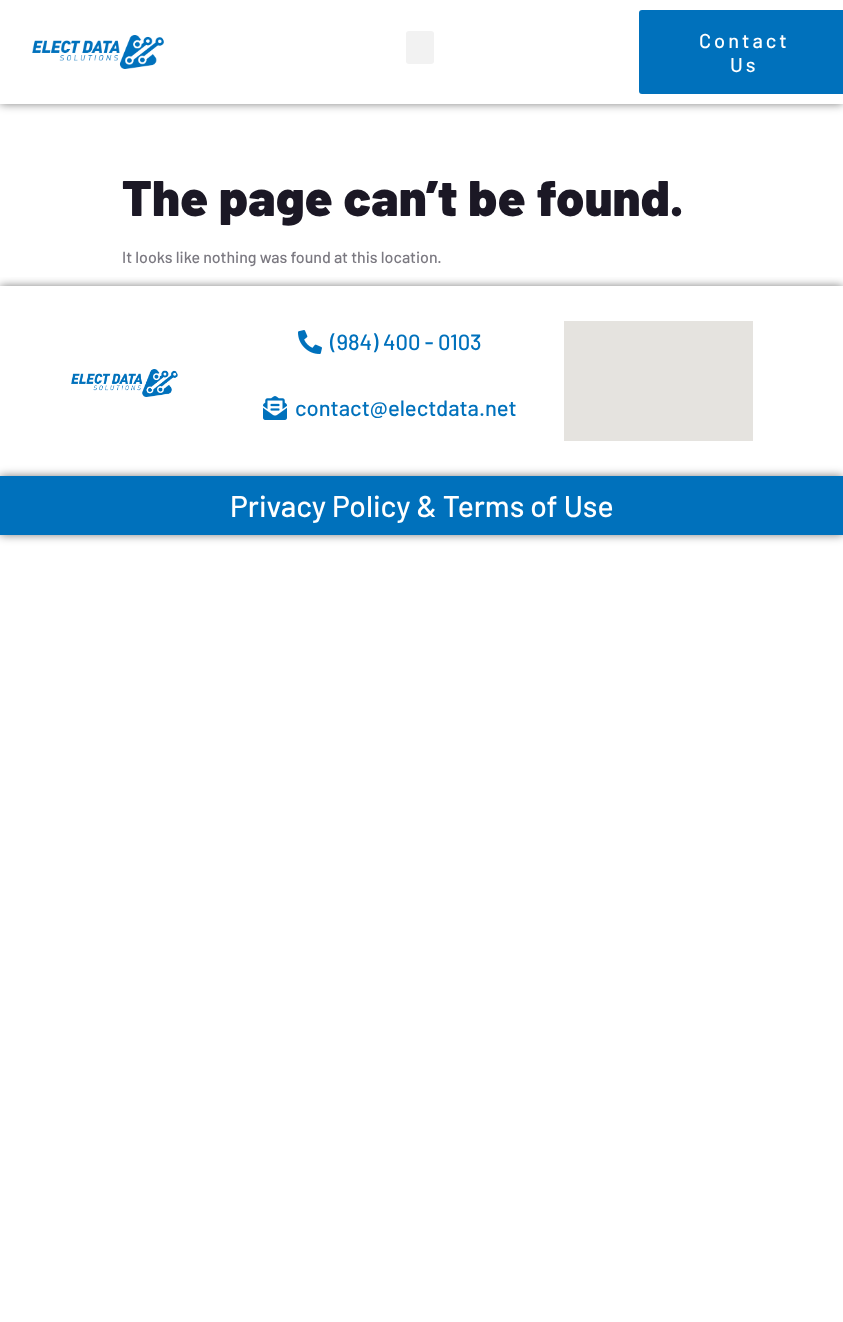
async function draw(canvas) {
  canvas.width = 843;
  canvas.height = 1322;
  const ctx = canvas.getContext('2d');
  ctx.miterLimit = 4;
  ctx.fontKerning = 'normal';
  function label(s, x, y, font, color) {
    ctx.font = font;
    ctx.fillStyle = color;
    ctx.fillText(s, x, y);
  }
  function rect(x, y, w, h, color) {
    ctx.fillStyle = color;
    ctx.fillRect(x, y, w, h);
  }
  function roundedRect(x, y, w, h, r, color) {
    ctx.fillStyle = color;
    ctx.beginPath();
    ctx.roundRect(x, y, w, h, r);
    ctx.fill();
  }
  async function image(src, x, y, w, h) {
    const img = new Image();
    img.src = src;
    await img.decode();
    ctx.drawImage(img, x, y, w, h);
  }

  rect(0, 0, 843, 1322, '#fff');
  ctx.fillStyle = '#00000080';
  ctx.filter = 'blur(5px)';
  ctx.beginPath();
  ctx.rect(0, 0, 843, 104);
  ctx.fill();
  ctx.filter = 'none';
  rect(0, 0, 843, 104, '#fff');
  await image('assets/img1.png', 32, 35, 132, 34);
  roundedRect(406, 31, 28, 33, 3, '#f2f2f2');
  roundedRect(639, 10, 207, 84, 3, '#0071bc');
  ctx.letterSpacing = '3px';
  label('Contact', 699, 48, '500 20px Barlow', '#fff');
  label('Us', 730, 72, '500 20px Barlow', '#fff');
  ctx.letterSpacing = '0.5px';
  label('The page can’t be found.', 122, 216, '900 50px Barlow', '#1b1825');
  ctx.letterSpacing = '0px';
  label('It looks like nothing was found at this location.', 122, 263, '500 16px Barlow', '#7b7981');
  ctx.save();
  ctx.beginPath();
  ctx.rect(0, 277, 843, 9);
  ctx.clip();
  ctx.fillStyle = '#00000080';
  ctx.filter = 'blur(5px)';
  ctx.beginPath();
  ctx.rect(0, 286, 843, 190);
  ctx.fill();
  ctx.filter = 'none';
  ctx.restore();
  await image('assets/img2.png', 71, 369, 107, 28);
  await image('assets/img3.png', 298, 330, 24, 24);
  label('(984) 400 - 0103', 330, 350, '500 22px Barlow', '#0071bc');
  await image('assets/img4.png', 263, 396, 24, 24);
  label('contact@electdata.net', 295, 416, '500 22px Barlow', '#0071bc');
  rect(564, 321, 189, 120, '#e5e3df');
  ctx.fillStyle = '#00000080';
  ctx.filter = 'blur(5px)';
  ctx.beginPath();
  ctx.rect(0, 476, 843, 59);
  ctx.fill();
  ctx.filter = 'none';
  rect(0, 476, 843, 59, '#0071bc');
  label('Privacy Policy & Terms of Use', 230, 517, '500 30px Barlow', '#fff');
}

draw(document.querySelector('canvas'));
